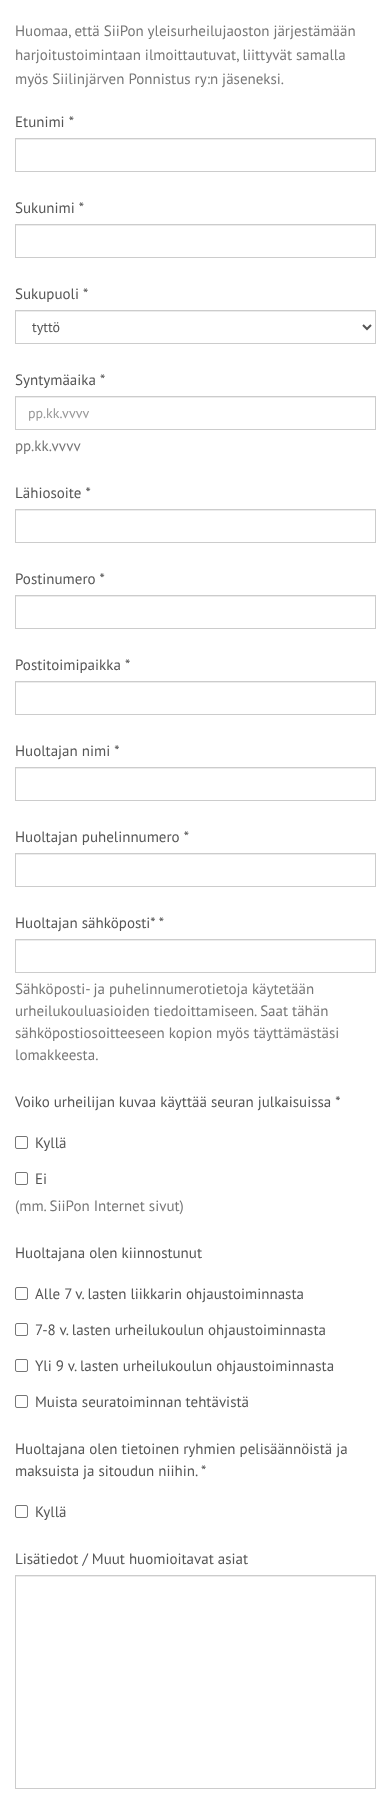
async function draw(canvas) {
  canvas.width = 391;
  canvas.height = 1804;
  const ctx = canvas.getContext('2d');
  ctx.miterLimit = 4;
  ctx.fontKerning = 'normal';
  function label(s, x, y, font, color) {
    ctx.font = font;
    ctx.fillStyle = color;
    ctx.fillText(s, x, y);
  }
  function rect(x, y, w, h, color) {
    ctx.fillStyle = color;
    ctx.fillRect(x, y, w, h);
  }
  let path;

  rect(0, 0, 391, 1804, '#fff');
  label('Huomaa, että SiiPon yleisurheilujaoston järjestämään', 15, 36, '15px PT Sans', '#777');
  label('harjoitustoimintaan ilmoittautuvat, liittyvät samalla', 15, 60, '15px PT Sans', '#777');
  label('myös Siilinjärven Ponnistus ry:n jäseneksi.', 15, 84, '15px PT Sans', '#777');
  label('Etunimi *', 15, 127, '15px PT Sans', '#555');
  rect(16, 139, 359, 1, '#ececec');
  ctx.strokeStyle = '#ccc';
  ctx.strokeRect(15.5, 138.5, 360, 33);
  label('Sukunimi *', 15, 213, '15px PT Sans', '#555');
  rect(16, 225, 359, 1, '#ececec');
  ctx.strokeRect(15.5, 224.5, 360, 33);
  label('Sukupuoli *', 15, 299, '15px PT Sans', '#555');
  rect(16, 311, 359, 1, '#ececec');
  ctx.strokeRect(15.5, 310.5, 360, 33);
  path = new Path2D('M363 325L367 329L371 325');
  ctx.strokeStyle = '#555';
  ctx.lineWidth = 2;
  ctx.stroke(path);
  label('tyttö', 32, 332, '14px PT Sans', '#555');
  label('Syntymäaika *', 15, 385, '15px PT Sans', '#555');
  rect(16, 397, 359, 1, '#ececec');
  ctx.strokeStyle = '#ccc';
  ctx.lineWidth = 1;
  ctx.strokeRect(15.5, 396.5, 360, 33);
  label('pp.kk.vvvv', 28, 418, '14px PT Sans', '#999');
  label('pp.kk.vvvv', 15, 451, '15px PT Sans', '#777');
  label('Lähiosoite *', 15, 498, '15px PT Sans', '#555');
  rect(16, 510, 359, 1, '#ececec');
  ctx.strokeRect(15.5, 509.5, 360, 33);
  label('Postinumero *', 15, 584, '15px PT Sans', '#555');
  rect(16, 596, 359, 1, '#ececec');
  ctx.strokeRect(15.5, 595.5, 360, 33);
  label('Postitoimipaikka *', 15, 670, '15px PT Sans', '#555');
  rect(16, 682, 359, 1, '#ececec');
  ctx.strokeRect(15.5, 681.5, 360, 33);
  label('Huoltajan nimi *', 15, 756, '15px PT Sans', '#555');
  rect(16, 768, 359, 1, '#ececec');
  ctx.strokeRect(15.5, 767.5, 360, 33);
  label('Huoltajan puhelinnumero *', 15, 842, '15px PT Sans', '#555');
  rect(16, 854, 359, 1, '#ececec');
  ctx.strokeRect(15.5, 853.5, 360, 33);
  label('Huoltajan sähköposti* *', 15, 928, '15px PT Sans', '#555');
  rect(16, 940, 359, 1, '#ececec');
  ctx.strokeRect(15.5, 939.5, 360, 33);
  label('Sähköposti- ja puhelinnumerotietoja käytetään', 15, 994, '15px PT Sans', '#777');
  label('urheilukouluasioiden tiedoittamiseen. Saat tähän', 15, 1016, '15px PT Sans', '#777');
  label('sähköpostiosoitteeseen kopion myös täyttämästäsi', 15, 1038, '15px PT Sans', '#777');
  label('lomakkeesta.', 15, 1060, '15px PT Sans', '#777');
  label('Voiko urheilijan kuvaa käyttää seuran julkaisuissa *', 15, 1107, '15px PT Sans', '#555');
  ctx.beginPath();
  ctx.roundRect(15.5, 1136.5, 12, 12, 1.5);
  ctx.strokeStyle = '#767676';
  ctx.stroke();
  label('Kyllä', 35, 1148, '15px PT Sans', '#555');
  ctx.beginPath();
  ctx.roundRect(15.5, 1172.5, 12, 12, 1.5);
  ctx.stroke();
  label('Ei', 35, 1184, '15px PT Sans', '#555');
  label('(mm. SiiPon Internet sivut)', 15, 1211, '15px PT Sans', '#777');
  label('Huoltajana olen kiinnostunut', 15, 1258, '15px PT Sans', '#555');
  ctx.beginPath();
  ctx.roundRect(15.5, 1287.5, 12, 12, 1.5);
  ctx.stroke();
  label('Alle 7 v. lasten liikkarin ohjaustoiminnasta', 35, 1299, '15px PT Sans', '#555');
  ctx.beginPath();
  ctx.roundRect(15.5, 1323.5, 12, 12, 1.5);
  ctx.stroke();
  label('7-8 v. lasten urheilukoulun ohjaustoiminnasta', 35, 1335, '15px PT Sans', '#555');
  ctx.beginPath();
  ctx.roundRect(15.5, 1359.5, 12, 12, 1.5);
  ctx.stroke();
  label('Yli 9 v. lasten urheilukoulun ohjaustoiminnasta', 35, 1371, '15px PT Sans', '#555');
  ctx.beginPath();
  ctx.roundRect(15.5, 1395.5, 12, 12, 1.5);
  ctx.stroke();
  label('Muista seuratoiminnan tehtävistä', 35, 1407, '15px PT Sans', '#555');
  label('Huoltajana olen tietoinen ryhmien pelisäännöistä ja', 15, 1454, '15px PT Sans', '#555');
  label('maksuista ja sitoudun niihin. *', 15, 1476, '15px PT Sans', '#555');
  ctx.beginPath();
  ctx.roundRect(15.5, 1505.5, 12, 12, 1.5);
  ctx.stroke();
  label('Kyllä', 35, 1517, '15px PT Sans', '#555');
  label('Lisätiedot / Muut huomioitavat asiat', 15, 1564, '15px PT Sans', '#555');
  rect(16, 1576, 359, 1, '#ececec');
  ctx.strokeStyle = '#ccc';
  ctx.strokeRect(15.5, 1575.5, 360, 213);
}

draw(document.querySelector('canvas'));
